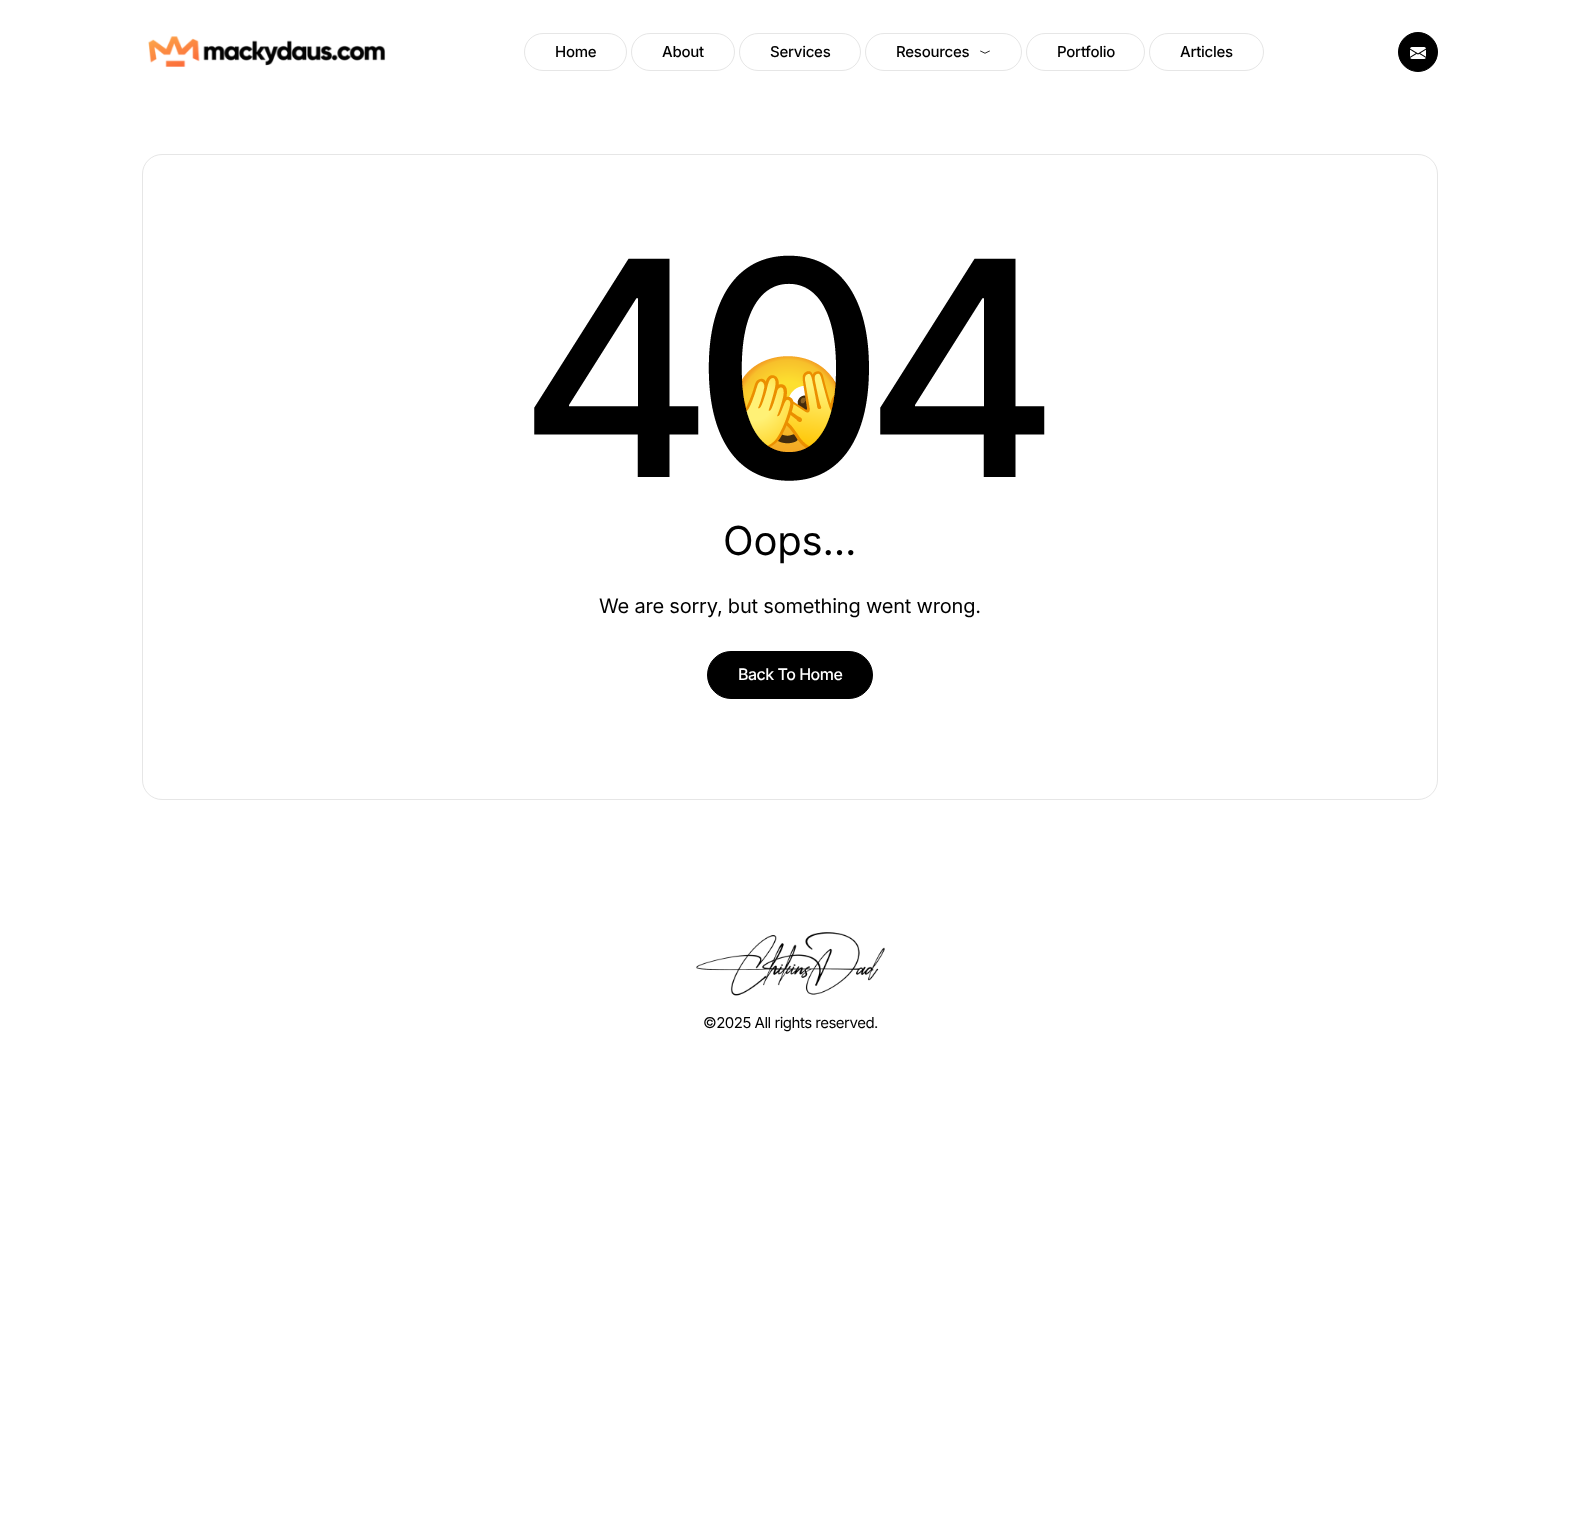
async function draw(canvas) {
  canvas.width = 1580;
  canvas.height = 1513;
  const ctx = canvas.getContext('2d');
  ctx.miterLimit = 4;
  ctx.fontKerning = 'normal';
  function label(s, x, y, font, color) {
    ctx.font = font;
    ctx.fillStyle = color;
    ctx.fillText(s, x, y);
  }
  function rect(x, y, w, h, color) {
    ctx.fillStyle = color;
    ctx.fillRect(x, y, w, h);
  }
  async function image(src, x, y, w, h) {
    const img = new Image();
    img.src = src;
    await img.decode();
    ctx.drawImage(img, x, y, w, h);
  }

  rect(0, 0, 1580, 1513, '#fff');
  await image('assets/img1.png', 148, 36, 238, 31);
  ctx.beginPath();
  ctx.roundRect(524.5, 33.5, 102, 37, 18.5);
  ctx.strokeStyle = '#e6e6e6';
  ctx.stroke();
  ctx.letterSpacing = '-0.25px';
  label('Home', 555, 57, '500 15px Inter', '#000');
  ctx.beginPath();
  ctx.roundRect(631.5, 33.5, 103, 37, 18.5);
  ctx.stroke();
  label('About', 662, 57, '500 15px Inter', '#000');
  ctx.beginPath();
  ctx.roundRect(739.5, 33.5, 121, 37, 18.5);
  ctx.stroke();
  label('Services', 770, 57, '500 15px Inter', '#000');
  ctx.beginPath();
  ctx.roundRect(865.5, 33.5, 156, 37, 18.5);
  ctx.stroke();
  label('Resources', 896, 57, '500 15px Inter', '#000');
  await image('assets/img2.png', 980, 50, 10, 4);
  ctx.beginPath();
  ctx.roundRect(1026.5, 33.5, 118, 37, 18.5);
  ctx.stroke();
  label('Portfolio', 1057, 57, '500 15px Inter', '#000');
  ctx.beginPath();
  ctx.roundRect(1149.5, 33.5, 114, 37, 18.5);
  ctx.stroke();
  label('Articles', 1180, 57, '500 15px Inter', '#000');
  ctx.beginPath();
  ctx.arc(1418, 52, 19.5, 0, 2 * Math.PI);
  ctx.fill();
  ctx.strokeStyle = '#000';
  ctx.stroke();
  await image('assets/img3.png', 1410, 47, 16, 12);
  ctx.beginPath();
  ctx.roundRect(142.5, 154.5, 1295, 645, 19.5);
  ctx.strokeStyle = '#e6e6e6';
  ctx.stroke();
  await image('assets/img4.png', 534, 255, 511, 226);
  ctx.letterSpacing = '-0.2px';
  label('Oops...', 723, 555, '40px Inter', '#000');
  label('We are sorry, but something went wrong.', 599, 613, '20px Inter', '#000');
  ctx.beginPath();
  ctx.roundRect(707.5, 651.5, 165, 47, 23.5);
  ctx.fill();
  ctx.strokeStyle = '#000';
  ctx.stroke();
  ctx.letterSpacing = '-0.5px';
  label('Back To Home', 738, 680, '500 16px Inter', '#fff');
  await image('assets/img5.png', 696, 932, 189, 64);
  label('©2025 All rights reserved.', 703, 1028, '15px Inter', '#000');
}

draw(document.querySelector('canvas'));
